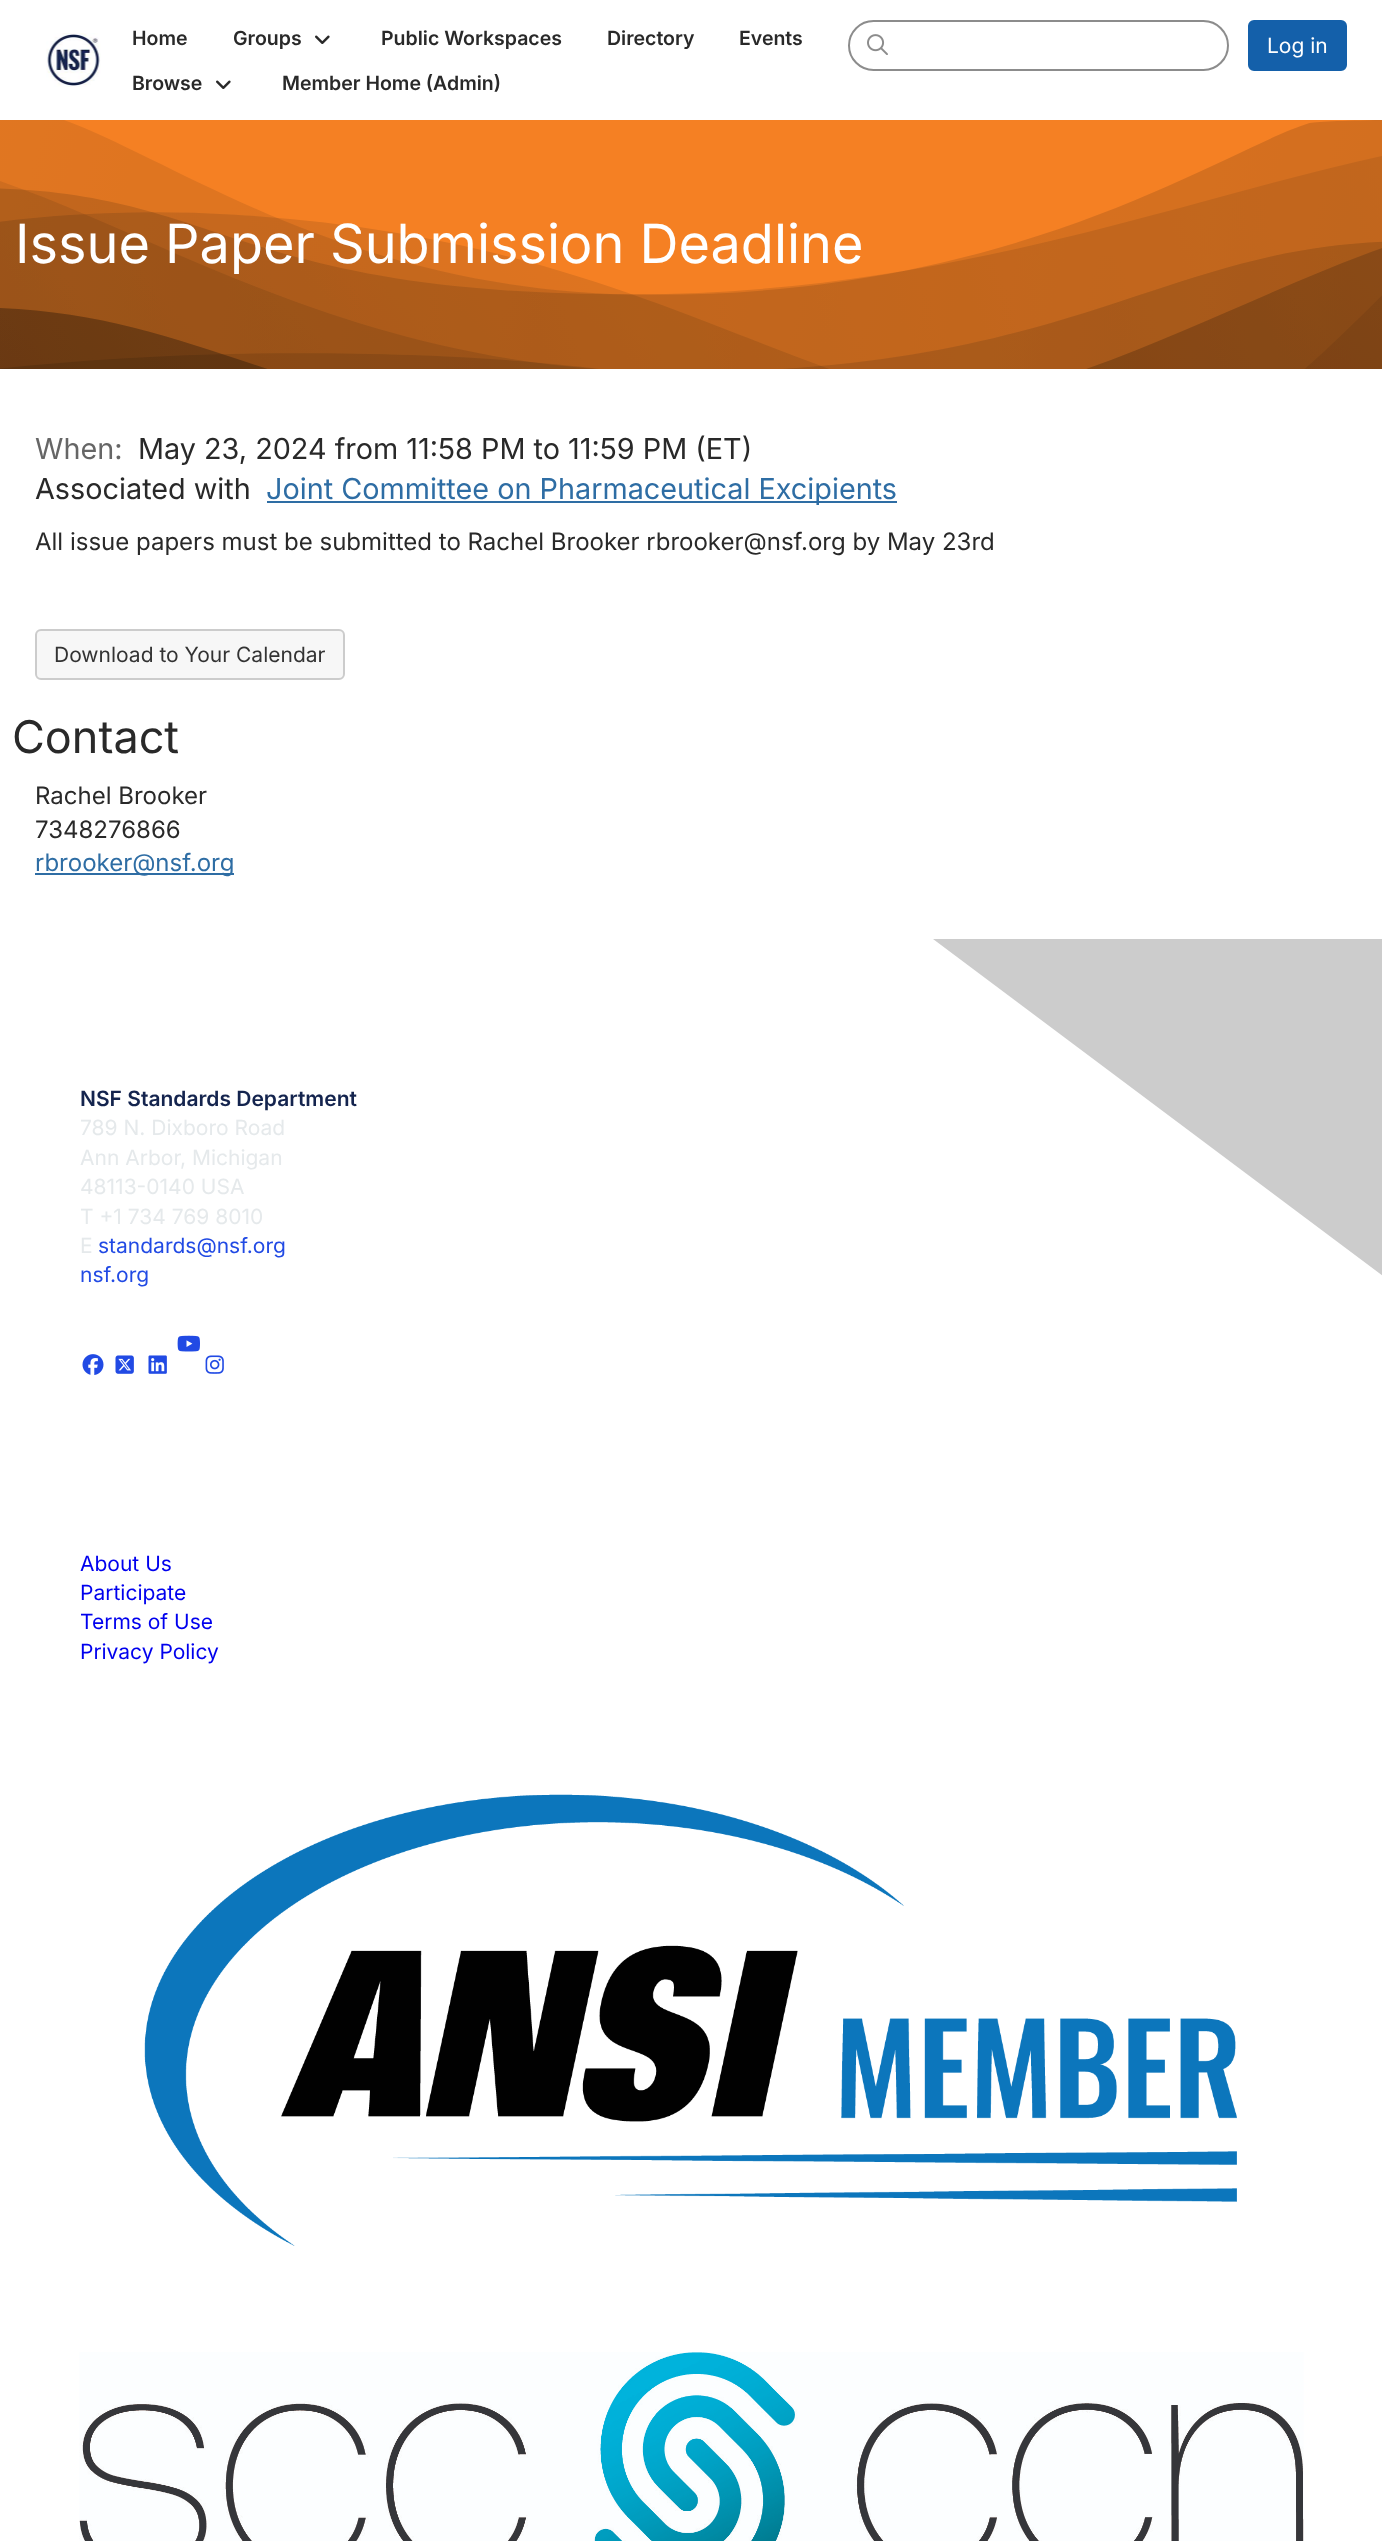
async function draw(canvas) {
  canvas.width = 1382;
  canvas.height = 2541;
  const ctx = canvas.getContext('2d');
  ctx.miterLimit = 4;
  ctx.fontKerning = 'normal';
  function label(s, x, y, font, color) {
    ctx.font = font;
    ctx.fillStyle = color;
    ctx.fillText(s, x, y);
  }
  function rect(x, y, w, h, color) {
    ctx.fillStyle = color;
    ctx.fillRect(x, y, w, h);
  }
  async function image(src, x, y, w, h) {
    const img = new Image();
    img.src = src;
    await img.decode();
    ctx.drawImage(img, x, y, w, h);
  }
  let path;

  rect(0, 0, 1382, 2541, '#fff');
  await image('assets/img1.png', 46, 33, 55, 54);
  label('Home', 132, 45, '600 19.5px Inter', '#292929');
  label('Groups', 233, 45, '600 19.5px Inter', '#292929');
  await image('assets/img2.png', 315, 35, 15, 9);
  label('Public Workspaces', 381, 45, '600 19.5px Inter', '#292929');
  label('Directory', 607, 45, '600 19.5px Inter', '#292929');
  label('Events', 739, 45, '600 19.5px Inter', '#292929');
  label('Browse', 132, 90, '600 19.5px Inter', '#292929');
  await image('assets/img2.png', 216, 80, 15, 9);
  label('Member Home (Admin)', 282, 90, '600 19.5px Inter', '#292929');
  ctx.fillStyle = '#ececec';
  path = new Path2D('M873 22H1203C1216 22 1227 33 1227 46C1227 32 1216 21 1203 21H873C860 21 849 32 849 46C849 33 860 22 873 22Z');
  ctx.fill(path);
  ctx.beginPath();
  ctx.roundRect(849, 21, 379, 49, 24.5);
  ctx.strokeStyle = '#8c8c8c';
  ctx.lineWidth = 2;
  ctx.stroke();
  await image('assets/img3.png', 867, 34, 21, 21);
  ctx.fillStyle = '#1460aa';
  ctx.beginPath();
  ctx.roundRect(1249, 21, 97, 49, 5);
  ctx.fill();
  ctx.strokeStyle = '#1460aa';
  ctx.stroke();
  label('Log in', 1267, 53, '21px Inter', '#fff');
  await image('assets/img4.png', 0, 120, 1382, 249);
  label('Issue Paper Submission Deadline', 15, 263, '54px Inter', '#fff');
  label('When:', 35, 459, '28.8px Inter', '#666');
  label('May 23, 2024 from 11:58 PM to 11:59 PM (ET)', 138, 459, '28.8px Inter', '#292929');
  label('Associated with', 35, 499, '28.8px Inter', '#292929');
  rect(267, 501, 630, 2, '#2e6da4');
  label('Joint Committee on Pharmaceutical Excipients', 266, 499, '28.8px Inter', '#2e6da4');
  label('All issue papers must be submitted to Rachel Brooker rbrooker@nsf.org by May 23rd', 35, 550, '24px Inter', '#292929');
  ctx.fillStyle = '#f7f7f7';
  ctx.beginPath();
  ctx.roundRect(36, 630, 308, 49, 5);
  ctx.fill();
  ctx.strokeStyle = '#ccc';
  ctx.stroke();
  label('Download to Your Calendar', 54, 662, '21px Inter', '#333');
  label('Contact', 12, 753, '45px Inter', '#292929');
  label('Rachel Brooker', 35, 804, '24px Inter', '#292929');
  label('7348276866', 35, 838, '24px Inter', '#292929');
  rect(35, 873, 199, 2, '#2e6da4');
  label('rbrooker@nsf.org', 35, 871, '24px Inter', '#2e6da4');
  label('NSF Standards Department', 80, 1106, '600 21px Inter', '#14244e');
  label('789 N. Dixboro Road', 80, 1135, '21px Inter', '#e5e9eb');
  label('Ann Arbor, Michigan', 80, 1165, '21px Inter', '#e5e9eb');
  label('48113-0140 USA', 80, 1194, '21px Inter', '#e5e9eb');
  label('T +1 734 769 8010', 80, 1224, '21px Inter', '#e5e9eb');
  label('E', 80, 1253, '21px Inter', '#e5e9eb');
  label('standards@nsf.org', 98, 1253, '21px Inter', '#214ae4');
  label('nsf.org', 80, 1282, '21px Inter', '#214ae4');
  await image('assets/img5.png', 177, 1335, 23, 17);
  await image('assets/img6.png', 82, 1354, 22, 21);
  await image('assets/img7.png', 115, 1355, 19, 19);
  await image('assets/img8.png', 148, 1355, 19, 19);
  await image('assets/img9.png', 205, 1355, 19, 19);
  label('About Us', 80, 1571, '21px Inter', '#00e');
  label('Participate', 80, 1600, '21px Inter', '#00e');
  label('Terms of Use', 80, 1629, '21px Inter', '#00e');
  label('Privacy Policy', 80, 1659, '21px Inter', '#00e');
  await image('assets/img10.png', 144, 1794, 1093, 452);
  await image('assets/img11.png', 79, 2352, 1225, 189);
  ctx.fillStyle = '#ccc';
  path = new Path2D('M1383 939V1276L933 939Z');
  ctx.fill(path);
}

draw(document.querySelector('canvas'));
